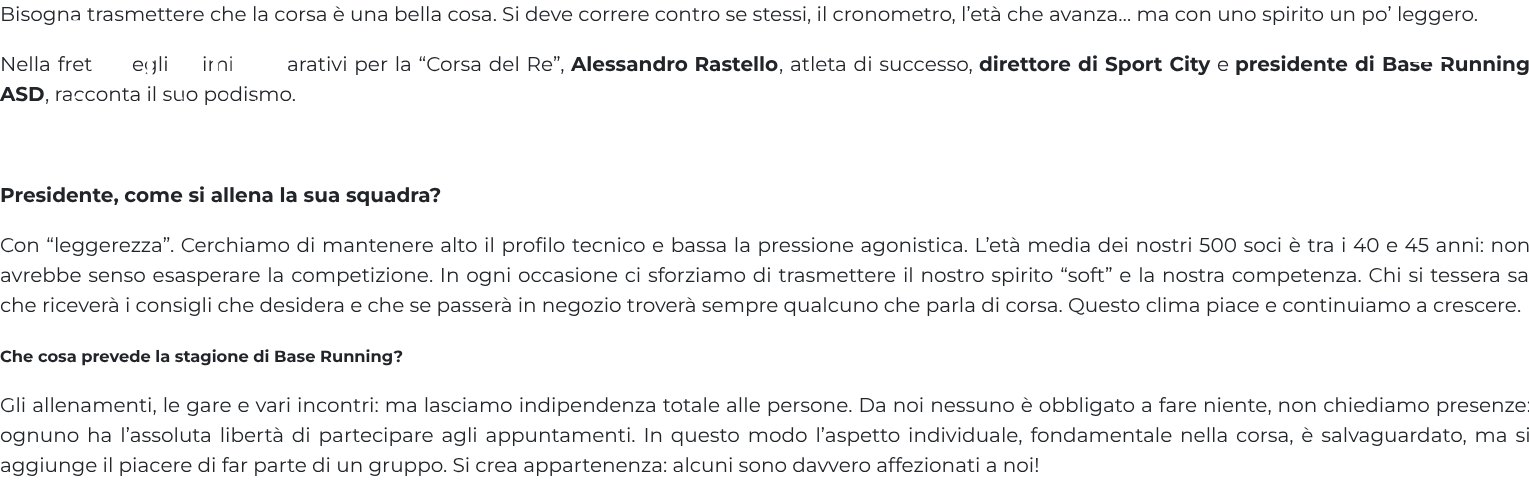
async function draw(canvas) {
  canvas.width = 1529;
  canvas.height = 489;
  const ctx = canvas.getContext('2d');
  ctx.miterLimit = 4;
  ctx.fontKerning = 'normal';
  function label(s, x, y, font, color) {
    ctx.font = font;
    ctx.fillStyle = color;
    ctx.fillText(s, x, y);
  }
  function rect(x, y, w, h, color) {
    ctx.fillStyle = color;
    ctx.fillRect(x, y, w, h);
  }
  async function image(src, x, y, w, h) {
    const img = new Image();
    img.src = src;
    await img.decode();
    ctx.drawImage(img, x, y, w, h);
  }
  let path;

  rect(0, 0, 1529, 489, '#fff');
  label('Bisogna trasmettere che la corsa è una bella cosa. Si deve correre contro se stessi, il cronometro, l’età che avanza… ma con uno spirito un po’ leggero.', 0, 21, '20px Montserrat', '#212529');
  ctx.wordSpacing = '1.5px';
  label('Nella fret', 0, 71, '20px Montserrat', '#212529');
  label('egli', 132, 71, '20px Montserrat', '#212529');
  label('imi', 202, 71, '20px Montserrat', '#212529');
  label('arativi per la “Corsa del Re”,', 287, 71, '20px Montserrat', '#212529');
  ctx.wordSpacing = '1px';
  label('Alessandro Rastello', 571, 71, 'bold 20px Montserrat', '#212529');
  ctx.wordSpacing = '1.5px';
  label(', atleta di successo,', 779, 71, '20px Montserrat', '#212529');
  label('direttore di Sport City', 979, 71, 'bold 20px Montserrat', '#212529');
  ctx.wordSpacing = '0px';
  label('e', 1217, 71, '20px Montserrat', '#212529');
  ctx.wordSpacing = '1.5px';
  label('presidente di Base Running', 1235, 71, 'bold 20px Montserrat', '#212529');
  ctx.wordSpacing = '0px';
  label('ASD', 0, 101, 'bold 20px Montserrat', '#212529');
  label(', racconta il suo podismo.', 45, 101, '20px Montserrat', '#212529');
  label('Presidente, come si allena la sua squadra?', 0, 202, 'bold 20px Montserrat', '#212529');
  ctx.wordSpacing = '1.3px';
  label('Con “leggerezza”. Cerchiamo di mantenere alto il profilo tecnico e bassa la pressione agonistica. L’età media dei nostri 500 soci è tra i 40 e 45 anni: non', 0, 252, '20px Montserrat', '#212529');
  ctx.wordSpacing = '1.5px';
  label('avrebbe senso esasperare la competizione. In ogni occasione ci sforziamo di trasmettere il nostro spirito “soft” e la nostra competenza. Chi si tessera sa', 0, 282, '20px Montserrat', '#212529');
  ctx.wordSpacing = '0px';
  label('che riceverà i consigli che desidera e che se passerà in negozio troverà sempre qualcuno che parla di corsa. Questo clima piace e continuiamo a crescere.', 0, 312, '20px Montserrat', '#212529');
  label('Che cosa prevede la stagione di Base Running?', 0, 362, 'bold 16.25px Montserrat', '#212529');
  ctx.wordSpacing = '0.75px';
  label('Gli allenamenti, le gare e vari incontri: ma lasciamo indipendenza totale alle persone. Da noi nessuno è obbligato a fare niente, non chiediamo presenze:', 0, 412, '20px Montserrat', '#212529');
  ctx.wordSpacing = '2.6px';
  label('ognuno ha l’assoluta libertà di partecipare agli appuntamenti. In questo modo l’aspetto individuale, fondamentale nella corsa, è salvaguardato, ma si', 0, 442, '20px Montserrat', '#212529');
  ctx.wordSpacing = '0px';
  label('aggiunge il piacere di far parte di un gruppo. Si crea appartenenza: alcuni sono davvero affezionati a noi!', 0, 472, '20px Montserrat', '#212529');
  await image('assets/img1.png', 71, 20, 208, 81);
  path = new Path2D('M1409 60.5H1446');
  ctx.strokeStyle = '#fff';
  ctx.lineWidth = 3.1;
  ctx.lineCap = 'round';
  ctx.stroke(path);
}

draw(document.querySelector('canvas'));
